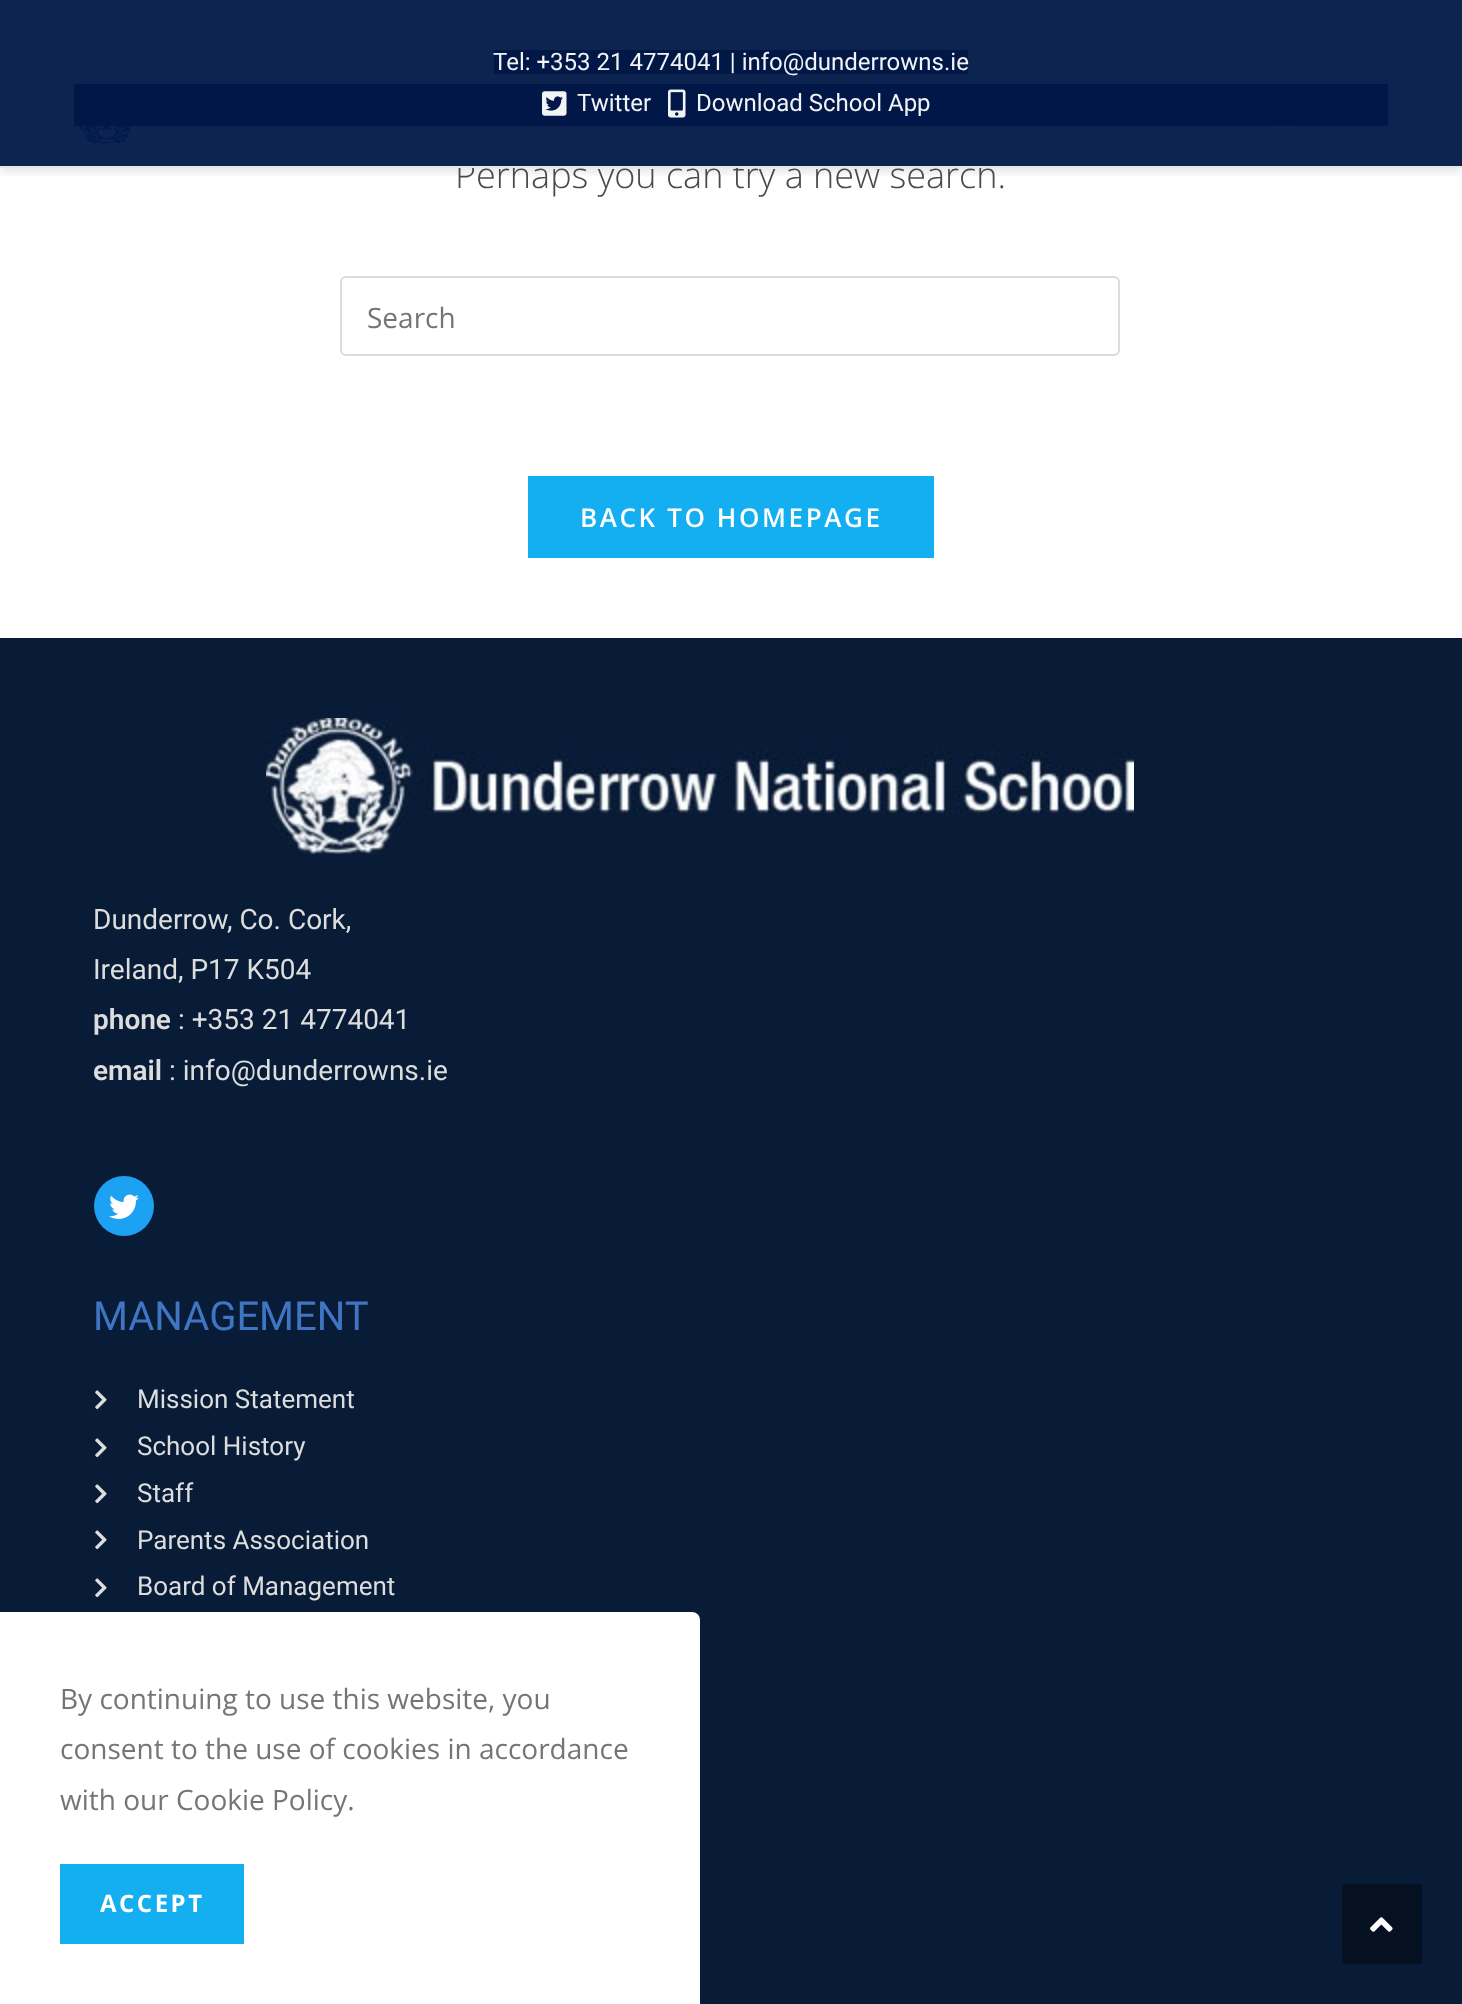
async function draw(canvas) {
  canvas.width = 1462;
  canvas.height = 2004;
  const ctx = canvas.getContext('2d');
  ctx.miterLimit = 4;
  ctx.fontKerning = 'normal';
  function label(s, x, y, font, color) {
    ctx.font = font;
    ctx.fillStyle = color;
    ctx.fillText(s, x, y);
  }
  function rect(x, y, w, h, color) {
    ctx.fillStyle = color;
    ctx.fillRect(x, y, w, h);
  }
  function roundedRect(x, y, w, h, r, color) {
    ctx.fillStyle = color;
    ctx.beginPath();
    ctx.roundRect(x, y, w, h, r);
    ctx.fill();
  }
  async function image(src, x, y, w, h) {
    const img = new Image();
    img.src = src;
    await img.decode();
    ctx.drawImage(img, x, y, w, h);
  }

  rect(0, 0, 1462, 2004, '#fff');
  ctx.save();
  ctx.beginPath();
  ctx.rect(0, 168, 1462, 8);
  ctx.clip();
  ctx.fillStyle = '#0000001a';
  ctx.filter = 'blur(5px)';
  ctx.beginPath();
  ctx.rect(0, 64, 1462, 108);
  ctx.fill();
  ctx.filter = 'none';
  ctx.restore();
  label('Perhaps you can try a new search.', 455, 188, '300 36px Open Sans', '#4a4a4a');
  rect(459, 160, 523, 6, '#fffffff2');
  await image('assets/img1.png', 74, 84, 382, 60);
  await image('assets/img2.png', 1270, 104, 23, 21);
  rect(0, 0, 1462, 166, '#001747f2');
  rect(0, 166, 1462, 2, '#e6e7e9');
  rect(494, 50, 474, 24, '#011847');
  label('Tel: +353 21 4774041 | info@dunderrowns.ie', 493, 70, '24px Roboto', '#f2f3f6');
  rect(74, 84, 1314, 42, '#001747f2');
  await image('assets/img3.png', 542, 91, 25, 25);
  label('Twitter', 577, 111, '24px Roboto', '#f2f3f6');
  await image('assets/img4.png', 668, 89, 18, 29);
  label('Download School App', 696, 111, '24px Roboto', '#f2f3f6');
  ctx.beginPath();
  ctx.roundRect(341, 277, 778, 78, 5);
  ctx.strokeStyle = '#ddd';
  ctx.lineWidth = 2;
  ctx.stroke();
  label('Search', 367, 328, '28px Open Sans', '#757575');
  rect(528, 476, 406, 82, '#13aff0');
  ctx.letterSpacing = '2.6px';
  label('BACK TO HOMEPAGE', 580, 527, '600 26px Open Sans', '#fff');
  rect(0, 638, 1462, 1366, '#081c37');
  await image('assets/img5.png', 266, 718, 868, 136);
  ctx.letterSpacing = '0px';
  label('Dunderrow, Co. Cork,', 93, 929, '28px Roboto', '#ddd');
  label('Ireland, P17 K504', 93, 979, '28px Roboto', '#ddd');
  label('phone', 93, 1029, '600 28px Roboto', '#ddd');
  label(': +353 21 4774041', 178, 1029, '28px Roboto', '#ddd');
  label('email', 93, 1080, '600 28px Roboto', '#ddd');
  label(': info@dunderrowns.ie', 169, 1080, '28px Roboto', '#ddd');
  ctx.fillStyle = '#1da1f2';
  ctx.beginPath();
  ctx.arc(124, 1206, 30, 0, 2 * Math.PI);
  ctx.fill();
  await image('assets/img6.png', 109, 1194, 30, 25);
  label('MANAGEMENT', 93, 1330, '40px Roboto', '#4075c3');
  await image('assets/img7.png', 95, 1390, 12, 20);
  label('Mission Statement', 137, 1408, '26px Roboto', '#ddd');
  await image('assets/img7.png', 95, 1438, 12, 20);
  label('School History', 137, 1455, '26px Roboto', '#ddd');
  await image('assets/img7.png', 95, 1484, 12, 20);
  label('Staff', 137, 1502, '26px Roboto', '#ddd');
  await image('assets/img7.png', 95, 1530, 12, 20);
  label('Parents Association', 137, 1549, '26px Roboto', '#ddd');
  await image('assets/img7.png', 95, 1578, 12, 20);
  label('Board of Management', 137, 1595, '26px Roboto', '#ddd');
  ctx.fillStyle = '#fff';
  ctx.beginPath();
  ctx.roundRect(0, 1612, 700, 392, [0, 8, 0, 0]);
  ctx.fill();
  label('By continuing to use this website, you', 60, 1709, '28px Open Sans', '#757575');
  label('consent to the use of cookies in accordance', 60, 1759, '28px Open Sans', '#757575');
  label('with our Cookie Policy.', 60, 1810, '28px Open Sans', '#757575');
  rect(60, 1864, 184, 80, '#13aff0');
  ctx.letterSpacing = '2.5px';
  label('ACCEPT', 100, 1912, 'bold 24px Open Sans', '#fff');
  roundedRect(1342, 1884, 80, 80, 4, '#051121');
  await image('assets/img8.png', 1370, 1917, 23, 15);
}

draw(document.querySelector('canvas'));
